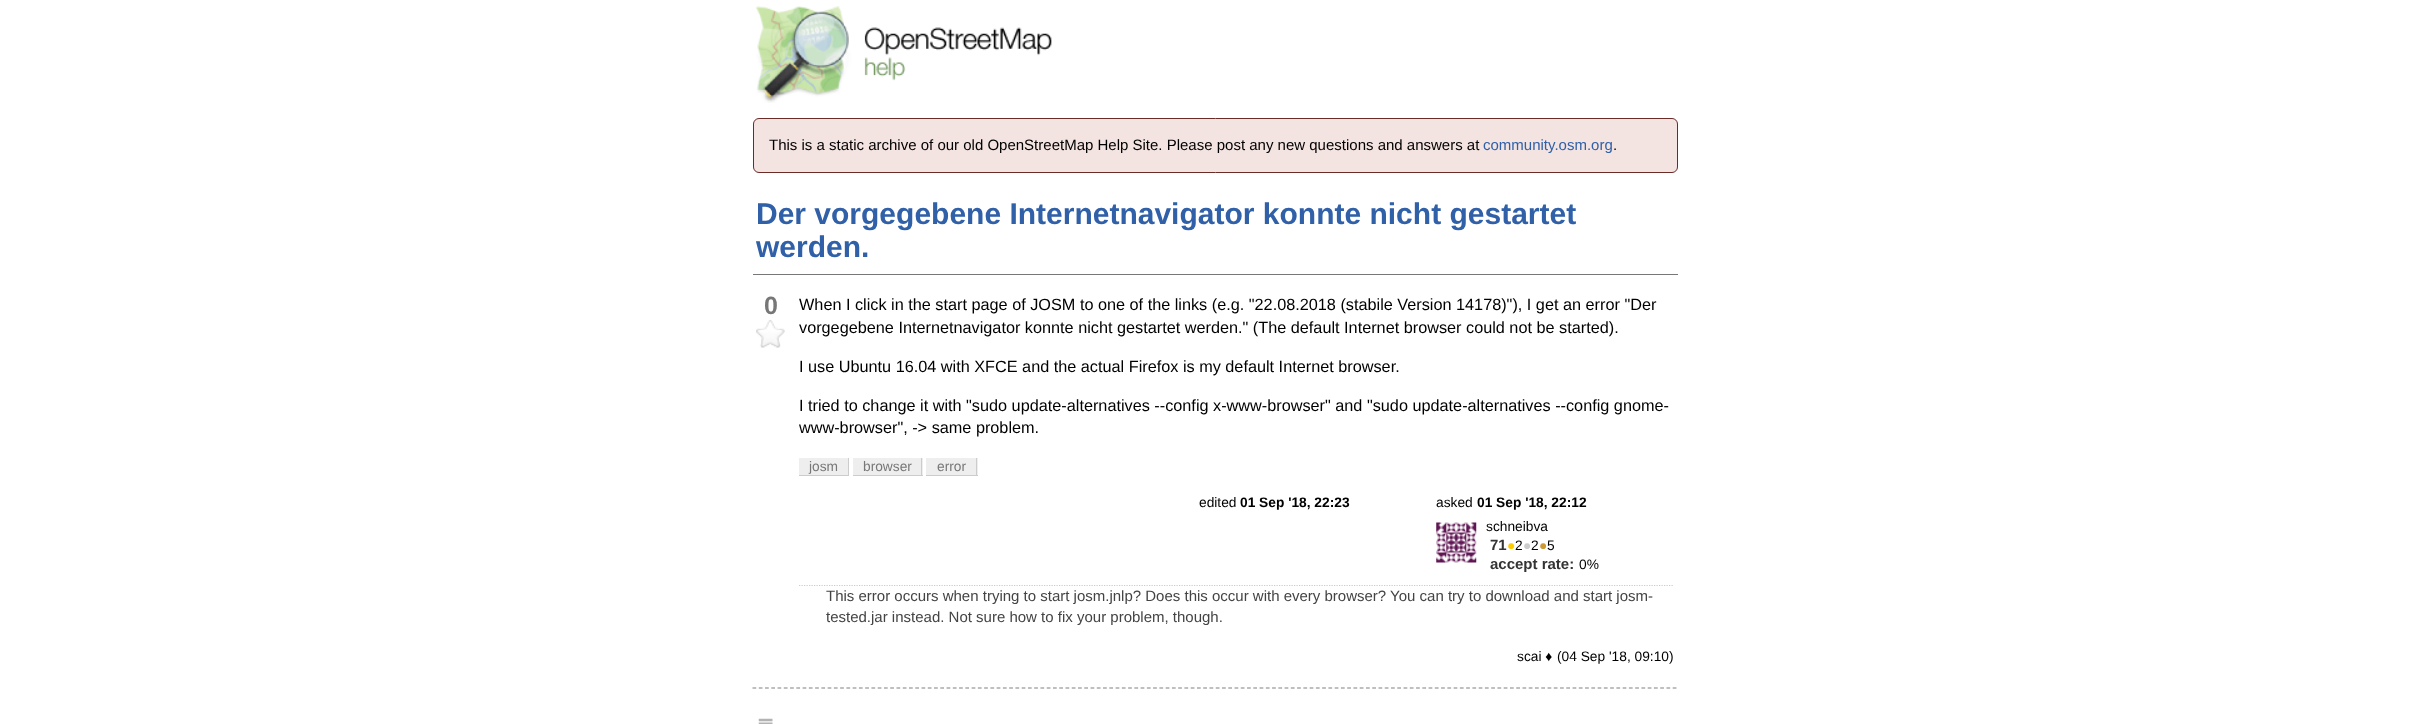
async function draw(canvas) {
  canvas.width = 2430;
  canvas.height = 724;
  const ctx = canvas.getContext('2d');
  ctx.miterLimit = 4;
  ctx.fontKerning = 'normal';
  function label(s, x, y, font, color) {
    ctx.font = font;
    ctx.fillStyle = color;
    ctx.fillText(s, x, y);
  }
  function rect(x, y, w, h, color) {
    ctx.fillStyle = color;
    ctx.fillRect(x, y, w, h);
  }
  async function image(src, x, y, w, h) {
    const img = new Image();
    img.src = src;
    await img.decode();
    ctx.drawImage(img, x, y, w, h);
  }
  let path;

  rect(0, 0, 2430, 724, '#fff');
  await image('assets/img1.png', 756, 6, 296, 97);
  ctx.fillStyle = '#f3e3e1';
  ctx.beginPath();
  ctx.roundRect(753.5, 118.5, 924, 54, 5.5);
  ctx.fill();
  ctx.strokeStyle = '#6b2b28';
  ctx.stroke();
  label('This is a static archive of our old OpenStreetMap Help Site. Please post any new questions and answers at', 769, 150, '15px Liberation Sans', '#000');
  label('community.osm.org', 1483, 150, '15px Liberation Sans', '#3060a8');
  label('.', 1613, 150, '15px Liberation Sans', '#000');
  rect(753, 274, 925, 1, '#777');
  label('Der vorgegebene Internetnavigator konnte nicht gestartet', 756, 224, 'bold 30px Liberation Sans', '#3060a8');
  label('werden.', 756, 257, 'bold 30px Liberation Sans', '#3060a8');
  label('0', 764, 314, 'bold 25px Liberation Sans', '#777');
  await image('assets/img2.png', 756, 320, 29, 28);
  label('When I click in the start page of JOSM to one of the links (e.g. "22.08.2018 (stabile Version 14178)"), I get an error "Der', 799, 310, '16.25px Liberation Sans', '#000');
  label('vorgegebene Internetnavigator konnte nicht gestartet werden." (The default Internet browser could not be started).', 799, 333, '16.25px Liberation Sans', '#000');
  label('I use Ubuntu 16.04 with XFCE and the actual Firefox is my default Internet browser.', 799, 372, '16.25px Liberation Sans', '#000');
  label('I tried to change it with "sudo update-alternatives --config x-www-browser" and "sudo update-alternatives --config gnome-', 799, 411, '16.25px Liberation Sans', '#000');
  label('www-browser", -> same problem.', 799, 433, '16.25px Liberation Sans', '#000');
  rect(799, 458, 49, 17, '#eee');
  label('josm', 809, 471, '13.75px Liberation Sans', '#777');
  rect(848, 458, 1, 18, '#ccc');
  rect(799, 475, 50, 1, '#ccc');
  rect(853, 458, 70, 17, '#eee');
  label('browser', 863, 471, '13.75px Liberation Sans', '#777');
  rect(921, 458, 1, 18, '#ccc');
  rect(853, 475, 70, 1, '#ccc');
  rect(926, 458, 52, 17, '#eee');
  label('error', 937, 471, '13.75px Liberation Sans', '#777');
  rect(976, 458, 1, 18, '#ccc');
  rect(926, 475, 52, 1, '#ccc');
  label('edited', 1199, 507, '13.75px Liberation Sans', '#000');
  label('01 Sep \'18, 22:23', 1240, 507, 'bold 13.75px Liberation Sans', '#000');
  label('asked', 1436, 507, '13.75px Liberation Sans', '#000');
  label('01 Sep \'18, 22:12', 1477, 507, 'bold 13.75px Liberation Sans', '#000');
  await image('assets/img3.png', 1436, 522, 41, 41);
  label('schneibva', 1486, 531, '13.75px Liberation Sans', '#000');
  label('71', 1490, 550, 'bold 15px Liberation Sans', '#333');
  label('●', 1507, 550, '13.75px Liberation Sans', '#fc0');
  label('2', 1515, 550, '13.75px Liberation Sans', '#000');
  label('●', 1523, 550, '13.75px Liberation Sans', '#ccc');
  label('2', 1531, 550, '13.75px Liberation Sans', '#000');
  label('●', 1539, 550, '13.75px Liberation Sans', '#c93');
  label('5', 1547, 550, '13.75px Liberation Sans', '#000');
  label('accept rate:', 1490, 569, 'bold 15px Liberation Sans', '#333');
  label('0%', 1579, 569, '13.75px Liberation Sans', '#000');
  path = new Path2D('M799 585.5H1674');
  ctx.strokeStyle = '#ccccce';
  ctx.lineWidth = 1.2;
  ctx.setLineDash([1.25, 1.25]);
  ctx.stroke(path);
  label('This error occurs when trying to start josm.jnlp? Does this occur with every browser? You can try to download and start josm-', 826, 601, '15px Liberation Sans', '#444');
  label('tested.jar instead. Not sure how to fix your problem, though.', 826, 622, '15px Liberation Sans', '#444');
  label('scai ♦', 1517, 661, '13.75px Liberation Sans', '#000');
  label('(04 Sep \'18, 09:10)', 1557, 661, '13.75px Liberation Sans', '#000');
  path = new Path2D('M752.5 688H1677.5');
  ctx.strokeStyle = '#808080';
  ctx.setLineDash([3.75, 2.51]);
  ctx.stroke(path);
  await image('assets/img4.png', 758, 718, 15, 6);
}

draw(document.querySelector('canvas'));
